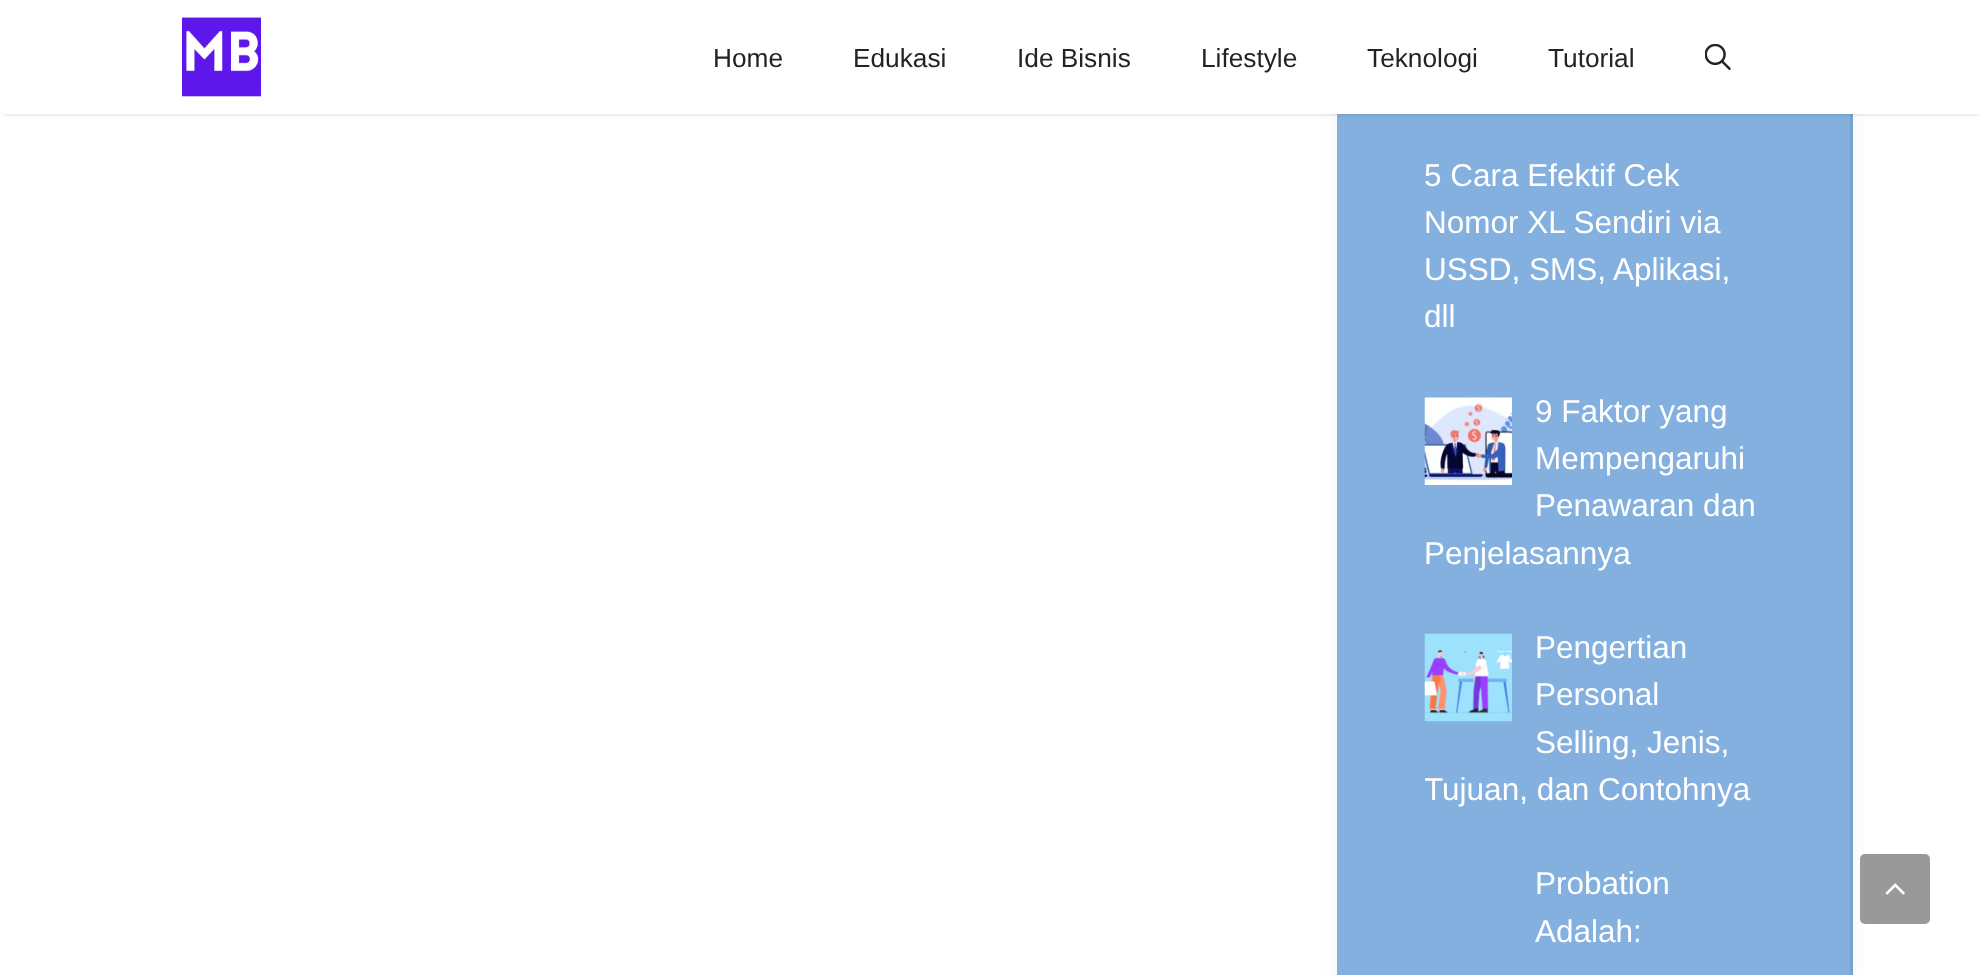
async function draw(canvas) {
  canvas.width = 1982;
  canvas.height = 975;
  const ctx = canvas.getContext('2d');
  ctx.miterLimit = 4;
  ctx.fontKerning = 'normal';
  function label(s, x, y, font, color) {
    ctx.font = font;
    ctx.fillStyle = color;
    ctx.fillText(s, x, y);
  }
  function rect(x, y, w, h, color) {
    ctx.fillStyle = color;
    ctx.fillRect(x, y, w, h);
  }
  function roundedRect(x, y, w, h, r, color) {
    ctx.fillStyle = color;
    ctx.beginPath();
    ctx.roundRect(x, y, w, h, r);
    ctx.fill();
  }
  async function image(src, x, y, w, h) {
    const img = new Image();
    img.src = src;
    await img.decode();
    ctx.drawImage(img, x, y, w, h);
  }
  let path;

  rect(0, 0, 1982, 975, '#fff');
  ctx.fillStyle = '#e8eaed80';
  ctx.filter = 'blur(9px)';
  ctx.beginPath();
  ctx.rect(1337, -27, 516, 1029);
  ctx.fill();
  ctx.filter = 'none';
  rect(1337, 114, 513, 861, '#83b0de');
  ctx.fillStyle = '#7aa4ce';
  path = new Path2D('M1853-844V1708L1850 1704V-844Z');
  ctx.fill(path);
  ctx.fillStyle = '#00000033';
  ctx.filter = 'blur(2px)';
  ctx.beginPath();
  ctx.rect(4, 7, 1975, 107);
  ctx.fill();
  ctx.filter = 'none';
  rect(1, 0, 1981, 114, '#fff');
  await image('assets/img1.png', 182, 17, 79, 80);
  label('Home', 713, 67, '26.25px Liberation Sans', '#242226');
  label('Edukasi', 853, 67, '26.25px Liberation Sans', '#242226');
  label('Ide Bisnis', 1017, 67, '26.25px Liberation Sans', '#242226');
  label('Lifestyle', 1201, 67, '26.25px Liberation Sans', '#242226');
  label('Teknologi', 1367, 67, '26.25px Liberation Sans', '#242226');
  label('Tutorial', 1548, 67, '26.25px Liberation Sans', '#242226');
  await image('assets/img2.png', 1705, 44, 26, 26);
  label('5 Cara Efektif Cek', 1424, 186, '31.5px Liberation Sans', '#fff');
  label('Nomor XL Sendiri via', 1424, 233, '31.5px Liberation Sans', '#fff');
  label('USSD, SMS, Aplikasi,', 1424, 280, '31.5px Liberation Sans', '#fff');
  label('dll', 1424, 327, '31.5px Liberation Sans', '#fff');
  await image('assets/img3.png', 1424, 397, 88, 88);
  label('9 Faktor yang', 1535, 422, '31.5px Liberation Sans', '#fff');
  label('Mempengaruhi', 1535, 469, '31.5px Liberation Sans', '#fff');
  label('Penawaran dan', 1535, 516, '31.5px Liberation Sans', '#fff');
  label('Penjelasannya', 1424, 564, '31.5px Liberation Sans', '#fff');
  await image('assets/img4.png', 1424, 633, 88, 89);
  label('Pengertian', 1535, 658, '31.5px Liberation Sans', '#fff');
  label('Personal', 1535, 705, '31.5px Liberation Sans', '#fff');
  label('Selling, Jenis,', 1535, 753, '31.5px Liberation Sans', '#fff');
  ctx.save();
  ctx.beginPath();
  ctx.rect(1425, 625, 337, 189);
  ctx.clip();
  label('Tujuan, dan Contohnya', 1424, 800, '31.5px Liberation Sans', '#fff');
  ctx.restore();
  label('Probation', 1535, 894, '31.5px Liberation Sans', '#fff');
  label('Adalah:', 1535, 942, '31.5px Liberation Sans', '#fff');
  roundedRect(1860, 854, 70, 70, 5, '#999');
  await image('assets/img5.png', 1885, 883, 20, 12);
}

draw(document.querySelector('canvas'));
